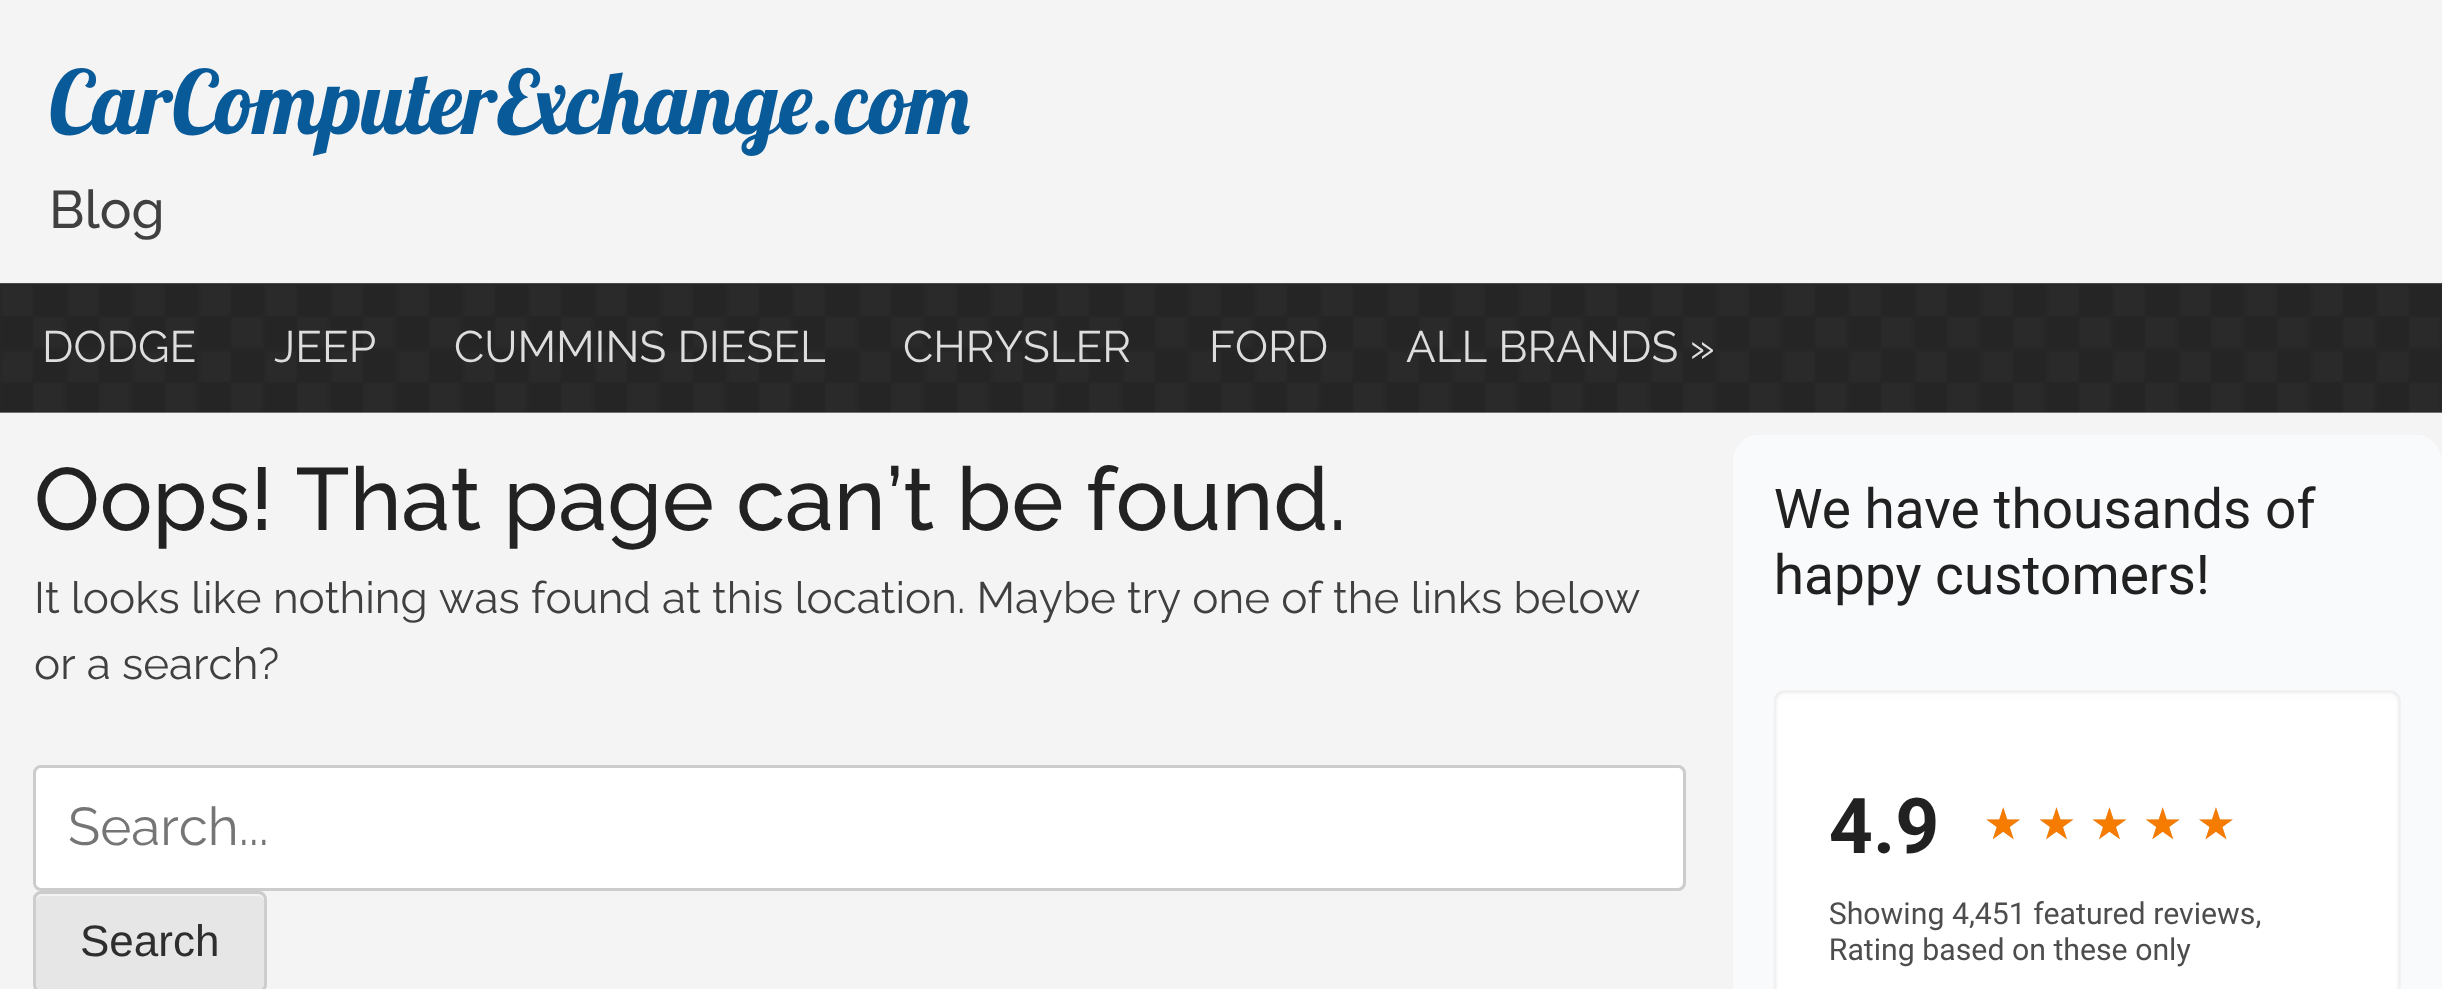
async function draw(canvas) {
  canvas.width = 2442;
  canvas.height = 989;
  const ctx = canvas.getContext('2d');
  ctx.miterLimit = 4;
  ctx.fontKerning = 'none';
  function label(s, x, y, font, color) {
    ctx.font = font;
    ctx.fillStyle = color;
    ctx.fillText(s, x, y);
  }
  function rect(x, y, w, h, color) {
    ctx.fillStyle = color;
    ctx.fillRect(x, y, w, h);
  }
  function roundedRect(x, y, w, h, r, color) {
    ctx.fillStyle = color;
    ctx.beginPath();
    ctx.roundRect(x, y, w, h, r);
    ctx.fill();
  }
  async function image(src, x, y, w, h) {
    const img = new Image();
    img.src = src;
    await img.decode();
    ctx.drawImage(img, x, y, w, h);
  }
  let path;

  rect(0, 0, 2442, 989, '#f4f4f5');
  label('CarComputerExchange.com', 49, 134, '88px Lobster', '#095a99');
  label('Blog', 49, 228, '500 53px Raleway', '#404040');
  rect(0, 283, 2442, 130, '#b7b7b7');
  await image('assets/img1.png', 0, 283, 2442, 130);
  label('DODGE', 42, 362, '44px Raleway', '#ddd');
  label('JEEP', 274, 362, '44px Raleway', '#ddd');
  label('CUMMINS DIESEL', 454, 362, '44px Raleway', '#ddd');
  label('CHRYSLER', 903, 362, '44px Raleway', '#ddd');
  label('FORD', 1209, 362, '44px Raleway', '#ddd');
  label('ALL BRANDS »', 1406, 362, '44px Raleway', '#ddd');
  label('Oops! That page can’t be found.', 34, 530, '500 88px Raleway', '#222');
  label('It looks like nothing was found at this location. Maybe try one of', 34, 613, '44px Raleway', '#404040');
  label('the links below', 1333, 613, '44px Raleway', '#404040');
  label('or a search?', 34, 679, '44px Raleway', '#404040');
  ctx.fillStyle = '#fff';
  ctx.beginPath();
  ctx.roundRect(34.5, 766.5, 1650, 123, 6.5);
  ctx.fill();
  ctx.strokeStyle = '#ccc';
  ctx.lineWidth = 3;
  ctx.stroke();
  label('Search...', 68, 845, '53px Raleway', '#757575');
  roundedRect(33, 891, 234, 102, 8, '#e6e6e6');
  ctx.fillStyle = '#f3f3f3';
  path = new Path2D('M41 896H258C262 896 264 899 264 902V900C264 897 261 894 258 894H42C39 894 36 897 36 900V902C36 899 38 896 41 896Z');
  ctx.fill(path);
  path = new Path2D('M263.5 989.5C262 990.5 260.5 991.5 258.5 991.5H41C39.5 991.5 37.5 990.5 36.5 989.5');
  ctx.strokeStyle = '#bbb';
  ctx.lineWidth = 2.8;
  ctx.stroke(path);
  path = new Path2D('M36.5 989.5C35 988 34.5 986.5 34.5 984.5V899C34.5 897.5 35 895.5 36.5 894.5C37.5 893 39.5 892.5 41 892.5H258.5C260.5 892.5 262 893 263.5 894.5C264.5 895.5 265.5 897.5 265.5 899V984.5C265.5 986.5 264.5 988 263.5 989.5');
  ctx.strokeStyle = '#ccc';
  ctx.stroke(path);
  label('Search', 80, 956, '44px Liberation Sans', '#2e2e2e');
  await image('assets/img2.png', 1733, 435, 709, 554);
}

draw(document.querySelector('canvas'));
